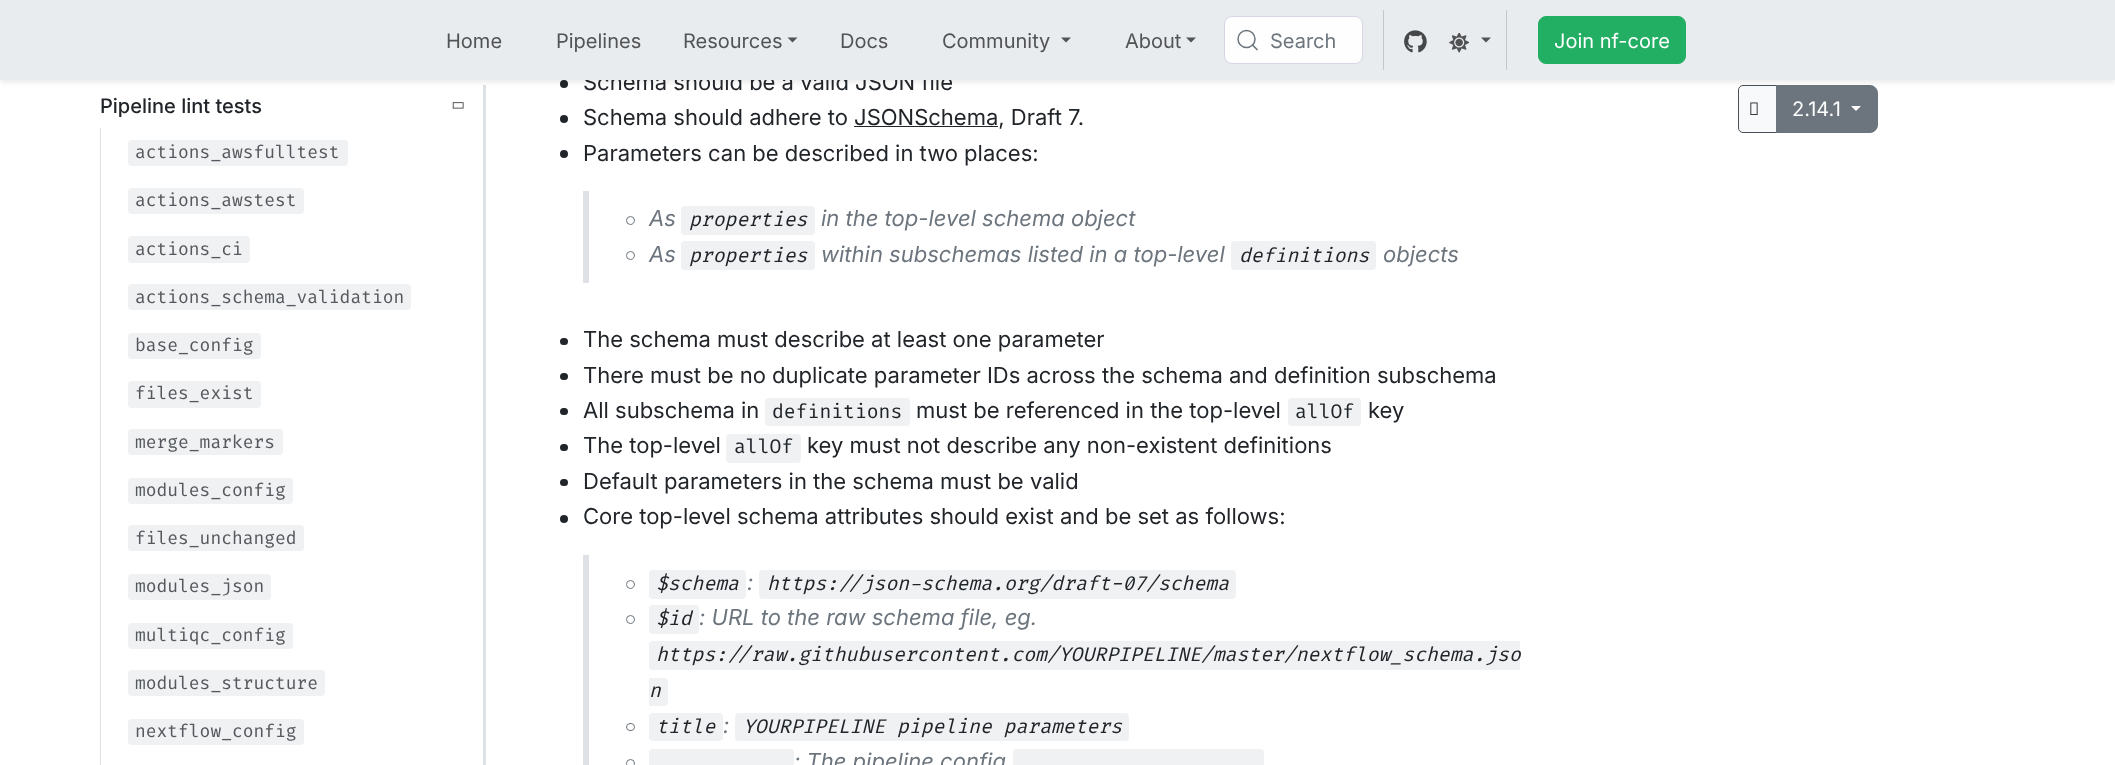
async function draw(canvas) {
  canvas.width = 2115;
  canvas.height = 765;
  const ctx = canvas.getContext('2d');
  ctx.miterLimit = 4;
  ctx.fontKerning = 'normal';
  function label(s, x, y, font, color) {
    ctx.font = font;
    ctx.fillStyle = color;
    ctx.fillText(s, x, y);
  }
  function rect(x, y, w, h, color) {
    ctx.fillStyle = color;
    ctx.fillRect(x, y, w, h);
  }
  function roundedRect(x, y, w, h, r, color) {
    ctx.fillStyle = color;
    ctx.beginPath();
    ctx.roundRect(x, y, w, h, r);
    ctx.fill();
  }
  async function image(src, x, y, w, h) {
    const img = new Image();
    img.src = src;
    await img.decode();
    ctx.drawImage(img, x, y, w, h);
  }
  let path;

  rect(0, 0, 2115, 765, '#fff');
  rect(483, 85, 3, 680, '#dee2e6');
  ctx.fillStyle = '#212529';
  ctx.beginPath();
  ctx.arc(564, 84, 4, 0, 2 * Math.PI);
  ctx.fill();
  ctx.fillStyle = '#f8f9fa';
  ctx.beginPath();
  ctx.roundRect(1738.5, 85.5, 39, 47, [4.5, 0, 0, 4.5]);
  ctx.fill();
  ctx.strokeStyle = '#495057';
  ctx.stroke();
  ctx.fillStyle = '#6c757d';
  ctx.beginPath();
  ctx.roundRect(1776.5, 85.5, 101, 47, [0, 7.5, 7.5, 0]);
  ctx.fill();
  ctx.strokeStyle = '#6c757d';
  ctx.stroke();
  ctx.fillStyle = '#00000012';
  ctx.filter = 'blur(2.5px)';
  ctx.beginPath();
  ctx.rect(0, 3, 2115, 80);
  ctx.fill();
  ctx.filter = 'none';
  label('Schema should be a valid JSON file', 583, 90, '22px Inter', '#212529');
  rect(0, 0, 2115, 80, '#e9ecef');
  label('Home', 446, 48, '20px Inter', '#525354');
  label('Pipelines', 556, 48, '20px Inter', '#525354');
  label('Resources', 683, 48, '20px Inter', '#525354');
  path = new Path2D('M787.5 37.5H797.5L792.5 42.5Z');
  ctx.fill(path);
  label('Docs', 840, 48, '20px Inter', '#525354');
  label('Community', 942, 48, '20px Inter', '#525354');
  path = new Path2D('M1061 37.5H1071L1066 42.5Z');
  ctx.fill(path);
  label('About', 1125, 48, '20px Inter', '#525354');
  path = new Path2D('M1186 37.5H1196L1191 42.5Z');
  ctx.fill(path);
  ctx.fillStyle = '#fefefe';
  ctx.beginPath();
  ctx.roundRect(1224.5, 16.5, 138, 47, 7.5);
  ctx.fill();
  ctx.strokeStyle = '#d6d6e7';
  ctx.stroke();
  ctx.beginPath();
  ctx.arc(1246.5, 39, 8.5, 0, 2 * Math.PI);
  ctx.strokeStyle = '#6c757d';
  ctx.lineWidth = 1.5;
  ctx.stroke();
  path = new Path2D('M1257 49.5L1252.5 45');
  ctx.lineWidth = 1.7;
  ctx.lineCap = 'round';
  ctx.lineJoin = 'round';
  ctx.stroke(path);
  label('Search', 1270, 48, '20px Inter', '#6c757d');
  rect(1383, 10, 1, 60, '#c4c7ca');
  await image('assets/img1.png', 1404, 30, 23, 23);
  await image('assets/img2.png', 1449, 33, 20, 20);
  ctx.fillStyle = '#525354';
  path = new Path2D('M1481 37.5H1491L1486 42.5Z');
  ctx.fill(path);
  rect(1506, 10, 1, 60, '#c4c7ca');
  ctx.fillStyle = '#22ae63';
  ctx.beginPath();
  ctx.roundRect(1538.5, 16.5, 147, 47, 7.5);
  ctx.fill();
  ctx.strokeStyle = '#22ae63';
  ctx.lineWidth = 1;
  ctx.lineJoin = 'miter';
  ctx.stroke();
  label('Join nf-core', 1554, 48, '20px Inter', '#fff');
  label('Pipeline lint tests', 100, 113, '500 20px Inter', '#212529');
  await image('assets/img3.png', 452, 102, 12, 7);
  rect(100, 128, 1, 637, '#dee2e6');
  roundedRect(128, 140, 220, 26, 4, '#eff1f3');
  label('actions_awsfulltest', 135, 158, '17.5px Fira Code', '#55585c');
  roundedRect(128, 188, 176, 26, 4, '#eff1f3');
  label('actions_awstest', 135, 206, '17.5px Fira Code', '#55585c');
  roundedRect(128, 236, 122, 27, 4, '#eff1f3');
  label('actions_ci', 135, 255, '17.5px Fira Code', '#55585c');
  roundedRect(128, 284, 283, 26, 4, '#eff1f3');
  label('actions_schema_validation', 135, 303, '17.5px Fira Code', '#55585c');
  roundedRect(128, 333, 133, 26, 4, '#eff1f3');
  label('base_config', 135, 351, '17.5px Fira Code', '#55585c');
  roundedRect(128, 381, 133, 27, 4, '#eff1f3');
  label('files_exist', 135, 399, '17.5px Fira Code', '#55585c');
  roundedRect(128, 429, 155, 26, 4, '#eff1f3');
  label('merge_markers', 135, 448, '17.5px Fira Code', '#55585c');
  roundedRect(128, 478, 165, 26, 4, '#eff1f3');
  label('modules_config', 135, 496, '17.5px Fira Code', '#55585c');
  roundedRect(128, 525, 176, 26, 4, '#eff1f3');
  label('files_unchanged', 135, 544, '17.5px Fira Code', '#55585c');
  roundedRect(128, 574, 143, 26, 4, '#eff1f3');
  label('modules_json', 135, 592, '17.5px Fira Code', '#55585c');
  roundedRect(128, 623, 165, 26, 4, '#eff1f3');
  label('multiqc_config', 135, 641, '17.5px Fira Code', '#55585c');
  roundedRect(128, 670, 197, 26, 4, '#eff1f3');
  label('modules_structure', 135, 689, '17.5px Fira Code', '#55585c');
  roundedRect(128, 719, 176, 26, 4, '#eff1f3');
  label('nextflow_config', 135, 737, '17.5px Fira Code', '#55585c');
  ctx.fillStyle = '#212529';
  ctx.beginPath();
  ctx.arc(564, 119, 4, 0, 2 * Math.PI);
  ctx.fill();
  label('Schema should adhere to JSONSchema, Draft 7.', 583, 125, '22px Inter', '#212529');
  rect(854, 126, 144, 1, '#212529');
  ctx.beginPath();
  ctx.arc(564, 154, 4, 0, 2 * Math.PI);
  ctx.fill();
  label('Parameters can be described in two places:', 583, 161, '22px Inter', '#212529');
  rect(583, 191, 6, 92, '#dee2e6');
  ctx.beginPath();
  ctx.arc(630.5, 220.5, 4, 0, 2 * Math.PI);
  ctx.strokeStyle = '#6c757d';
  ctx.stroke();
  label('As', 649, 226, 'italic 22px Inter', '#6c757d');
  roundedRect(681, 206, 134, 29, 4, '#eff1f3');
  label('properties', 689, 226, 'italic 19.25px Fira Code', '#212529');
  label('in the top-level schema object', 821, 226, 'italic 22px Inter', '#6c757d');
  ctx.beginPath();
  ctx.arc(630.5, 255.5, 4, 0, 2 * Math.PI);
  ctx.stroke();
  label('As', 649, 262, 'italic 22px Inter', '#6c757d');
  roundedRect(681, 241, 134, 29, 4, '#eff1f3');
  label('properties', 689, 262, 'italic 19.25px Fira Code', '#212529');
  label('within subschemas listed in a top-level', 821, 262, 'italic 22px Inter', '#6c757d');
  roundedRect(1231, 241, 145, 29, 4, '#eff1f3');
  label('definitions', 1239, 262, 'italic 19.25px Fira Code', '#212529');
  label('objects', 1383, 262, 'italic 22px Inter', '#6c757d');
  roundedRect(560, 338, 8, 7, 3.5, '#212529');
  label('The schema must describe at least one parameter', 583, 347, '22px Inter', '#212529');
  roundedRect(560, 373, 8, 7, 3.5, '#212529');
  label('There must be no duplicate parameter IDs across the schema and definition subschema', 583, 383, '22px Inter', '#212529');
  roundedRect(560, 408, 8, 7, 3.5, '#212529');
  label('All subschema in', 583, 418, '22px Inter', '#212529');
  roundedRect(765, 398, 145, 28, 4, '#eff1f3');
  label('definitions', 772, 418, '19.25px Fira Code', '#212529');
  label('must be referenced in the top-level', 916, 418, '22px Inter', '#212529');
  roundedRect(1288, 398, 73, 28, 4, '#eff1f3');
  label('allOf', 1295, 418, '19.25px Fira Code', '#212529');
  label('key', 1368, 418, '22px Inter', '#212529');
  roundedRect(560, 444, 8, 7, 3.5, '#212529');
  label('The top-level', 583, 453, '22px Inter', '#212529');
  roundedRect(726, 434, 75, 29, 4, '#eff1f3');
  label('allOf', 734, 453, '19.25px Fira Code', '#212529');
  label('key must not describe any non-existent definitions', 807, 453, '22px Inter', '#212529');
  roundedRect(560, 479, 8, 7, 3.5, '#212529');
  label('Default parameters in the schema must be valid', 583, 489, '22px Inter', '#212529');
  ctx.beginPath();
  ctx.arc(564, 519, 4, 0, 2 * Math.PI);
  ctx.fill();
  label('Core top-level schema attributes should exist and be set as follows:', 583, 524, '22px Inter', '#212529');
  rect(583, 555, 6, 210, '#dee2e6');
  ctx.beginPath();
  ctx.arc(630.5, 584.5, 4, 0, 2 * Math.PI);
  ctx.stroke();
  roundedRect(649, 570, 97, 29, 4, '#eff1f3');
  label('$schema', 656, 590, 'italic 19.25px Fira Code', '#212529');
  label(':', 747, 590, 'italic 22px Inter', '#6c757d');
  roundedRect(759, 570, 477, 29, 4, '#eff1f3');
  label('https://json-schema.org/draft-07/schema', 767, 590, 'italic 19.25px Fira Code', '#212529');
  ctx.beginPath();
  ctx.arc(630.5, 619.5, 4, 0, 2 * Math.PI);
  ctx.stroke();
  roundedRect(649, 605, 50, 29, 4, '#eff1f3');
  label('$id', 656, 625, 'italic 19.25px Fira Code', '#212529');
  label(': URL to the raw schema file, eg.', 699, 625, 'italic 22px Inter', '#6c757d');
  ctx.fillStyle = '#eff1f3';
  ctx.beginPath();
  ctx.roundRect(649, 641, 871, 29, [4, 0, 0, 4]);
  ctx.fill();
  label('https://raw.githubusercontent.com/YOURPIPELINE/master/nextflow_schema.jso', 656, 661, 'italic 19.25px Fira Code', '#212529');
  ctx.fillStyle = '#eff1f3';
  ctx.beginPath();
  ctx.roundRect(649, 678, 19, 28, [0, 4, 4, 0]);
  ctx.fill();
  label('n', 649, 697, 'italic 19.25px Fira Code', '#212529');
  ctx.beginPath();
  ctx.roundRect(626.5, 723.5, 8, 7, 3.5);
  ctx.stroke();
  roundedRect(649, 713, 74, 28, 4, '#eff1f3');
  label('title', 656, 733, 'italic 19.25px Fira Code', '#212529');
  label(':', 723, 733, 'italic 22px Inter', '#6c757d');
  roundedRect(735, 713, 394, 28, 4, '#eff1f3');
  label('YOURPIPELINE pipeline parameters', 743, 733, 'italic 19.25px Fira Code', '#212529');
  ctx.beginPath();
  ctx.arc(630.5, 763.5, 4, 0, 2 * Math.PI);
  ctx.stroke();
  roundedRect(649, 749, 145, 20, 4, '#eff1f3');
  label(': The pipeline config', 794, 769, 'italic 22px Inter', '#6c757d');
  roundedRect(1013, 749, 251, 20, 4, '#eff1f3');
  await image('assets/img4.png', 1750, 102, 8, 13);
  label('2.14.1', 1792, 116, '20px Inter', '#fff');
  path = new Path2D('M1851 106H1861L1856 111Z');
  ctx.fill(path);
}

draw(document.querySelector('canvas'));
